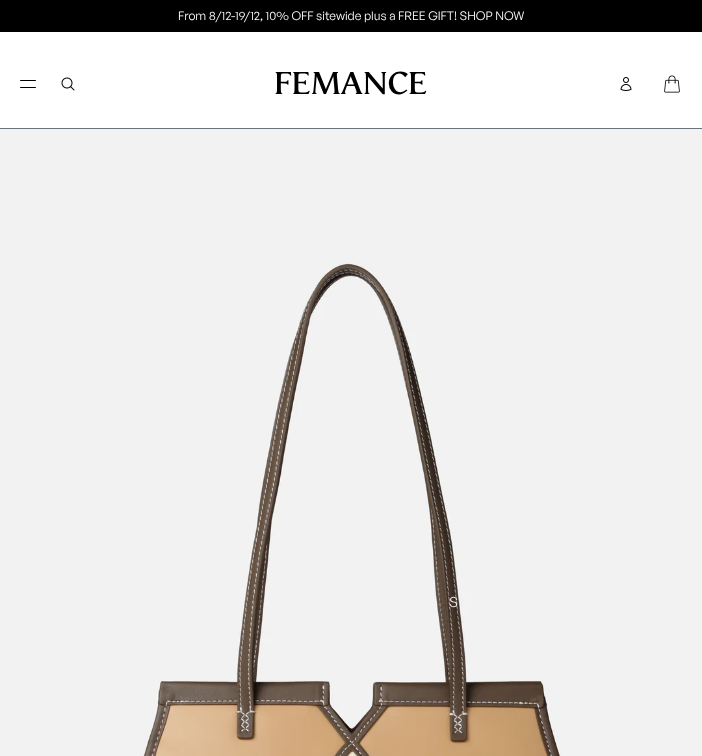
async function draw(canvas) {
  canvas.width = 702;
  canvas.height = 756;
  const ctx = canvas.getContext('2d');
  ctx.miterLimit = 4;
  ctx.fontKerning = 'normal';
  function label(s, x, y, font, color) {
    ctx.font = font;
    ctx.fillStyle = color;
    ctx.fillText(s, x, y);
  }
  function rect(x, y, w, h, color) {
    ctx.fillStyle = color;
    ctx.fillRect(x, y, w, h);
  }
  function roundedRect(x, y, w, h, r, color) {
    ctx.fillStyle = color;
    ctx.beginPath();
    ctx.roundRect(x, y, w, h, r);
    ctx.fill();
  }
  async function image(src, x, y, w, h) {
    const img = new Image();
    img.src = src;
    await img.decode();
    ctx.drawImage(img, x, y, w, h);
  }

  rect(0, 0, 702, 756, '#fff');
  rect(0, 0, 702, 32, '#000');
  label('From 8/12-19/12, 10% OFF sitewide plus a FREE GIFT! SHOP NOW', 178, 20, '12px General Sans', '#fff');
  rect(0, 128, 702, 1, '#6b7280');
  roundedRect(20, 80, 16, 1, 0.5, '#000');
  roundedRect(20, 87, 16, 1, 0.5, '#000');
  await image('assets/img1.png', 61, 77, 14, 14);
  label('FEMANCE', 274, 94, '600 32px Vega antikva', '#000');
  await image('assets/img2.png', 620, 77, 12, 14);
  await image('assets/img3.png', 664, 75, 16, 18);
  await image('assets/img4.png', 0, 129, 702, 627);
  label('S', 449, 607, '14px General Sans', '#eae9e8');
}

draw(document.querySelector('canvas'));
